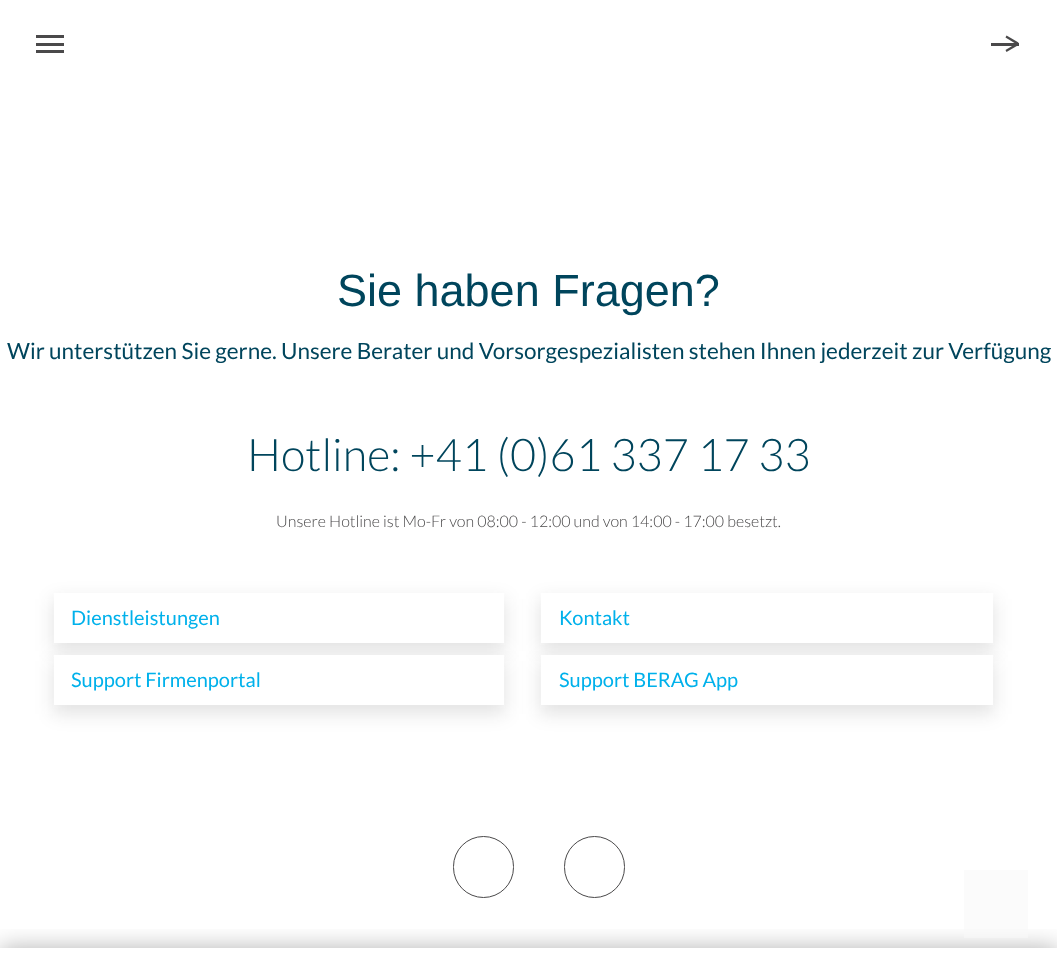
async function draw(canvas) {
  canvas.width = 1057;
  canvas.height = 956;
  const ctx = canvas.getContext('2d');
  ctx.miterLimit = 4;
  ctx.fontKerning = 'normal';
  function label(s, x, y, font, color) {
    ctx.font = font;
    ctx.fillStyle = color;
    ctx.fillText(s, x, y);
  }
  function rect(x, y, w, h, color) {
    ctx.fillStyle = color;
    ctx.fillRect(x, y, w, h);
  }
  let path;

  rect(0, 0, 1057, 956, '#fff');
  rect(36, 43, 28, 3, '#4a494a');
  rect(36, 35, 28, 3, '#4a494a');
  rect(36, 50, 28, 3, '#4a494a');
  rect(991, 43, 28, 3, '#4a494a');
  path = new Path2D('M1006.5 35.5L1018.5 42.5L1017 44.5L1005.5 37.5Z');
  ctx.fill(path);
  path = new Path2D('M1005.5 50L1017 43L1018.5 45L1006.5 52Z');
  ctx.fill(path);
  label('Sie haben Fragen?', 337, 306, '45px Liberation Sans', '#00455c');
  label('Wir unterstützen Sie gerne. Unsere Berater und Vorsorgespezialisten stehen Ihnen jederzeit zur Verfügung', 7, 359, '22.5px Lato', '#00455c');
  label('Hotline: +41 (0)61 337 17 33', 247, 471, '300 45px Lato', '#00455c');
  label('Unsere Hotline ist Mo-Fr von 08:00 - 12:00 und von 14:00 - 17:00 besetzt.', 276, 527, '300 16px Lato', '#4a494a');
  ctx.fillStyle = '#1515151f';
  ctx.filter = 'blur(9px)';
  ctx.beginPath();
  ctx.rect(53, 599, 452, 52);
  ctx.fill();
  ctx.filter = 'none';
  rect(54, 593, 450, 50, '#fff');
  label('Dienstleistungen', 71, 625, '20px Lato', '#00b1eb');
  ctx.fillStyle = '#1515151f';
  ctx.filter = 'blur(9px)';
  ctx.beginPath();
  ctx.rect(540, 599, 454, 52);
  ctx.fill();
  ctx.filter = 'none';
  rect(541, 593, 452, 50, '#fff');
  label('Kontakt', 559, 625, '20px Lato', '#00b1eb');
  ctx.fillStyle = '#1515151f';
  ctx.filter = 'blur(9px)';
  ctx.beginPath();
  ctx.rect(53, 661, 452, 53);
  ctx.fill();
  ctx.filter = 'none';
  rect(54, 655, 450, 50, '#fff');
  label('Support Firmenportal', 71, 687, '20px Lato', '#00b1eb');
  ctx.fillStyle = '#1515151f';
  ctx.filter = 'blur(9px)';
  ctx.beginPath();
  ctx.rect(540, 661, 454, 53);
  ctx.fill();
  ctx.filter = 'none';
  rect(541, 655, 452, 50, '#fff');
  label('Support BERAG App', 559, 687, '20px Lato', '#00b1eb');
  ctx.beginPath();
  ctx.roundRect(453.5, 836.5, 60, 61, 30);
  ctx.strokeStyle = '#4a494a';
  ctx.stroke();
  ctx.beginPath();
  ctx.roundRect(564.5, 836.5, 60, 61, 30);
  ctx.stroke();
  ctx.save();
  ctx.beginPath();
  ctx.rect(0, 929, 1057, 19);
  ctx.clip();
  ctx.fillStyle = '#0000004d';
  ctx.filter = 'blur(12.5px)';
  ctx.beginPath();
  ctx.rect(0, 948, 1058, 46);
  ctx.fill();
  ctx.filter = 'none';
  ctx.restore();
  rect(964, 870, 64, 68, '#f8f8f899');
}

draw(document.querySelector('canvas'));
